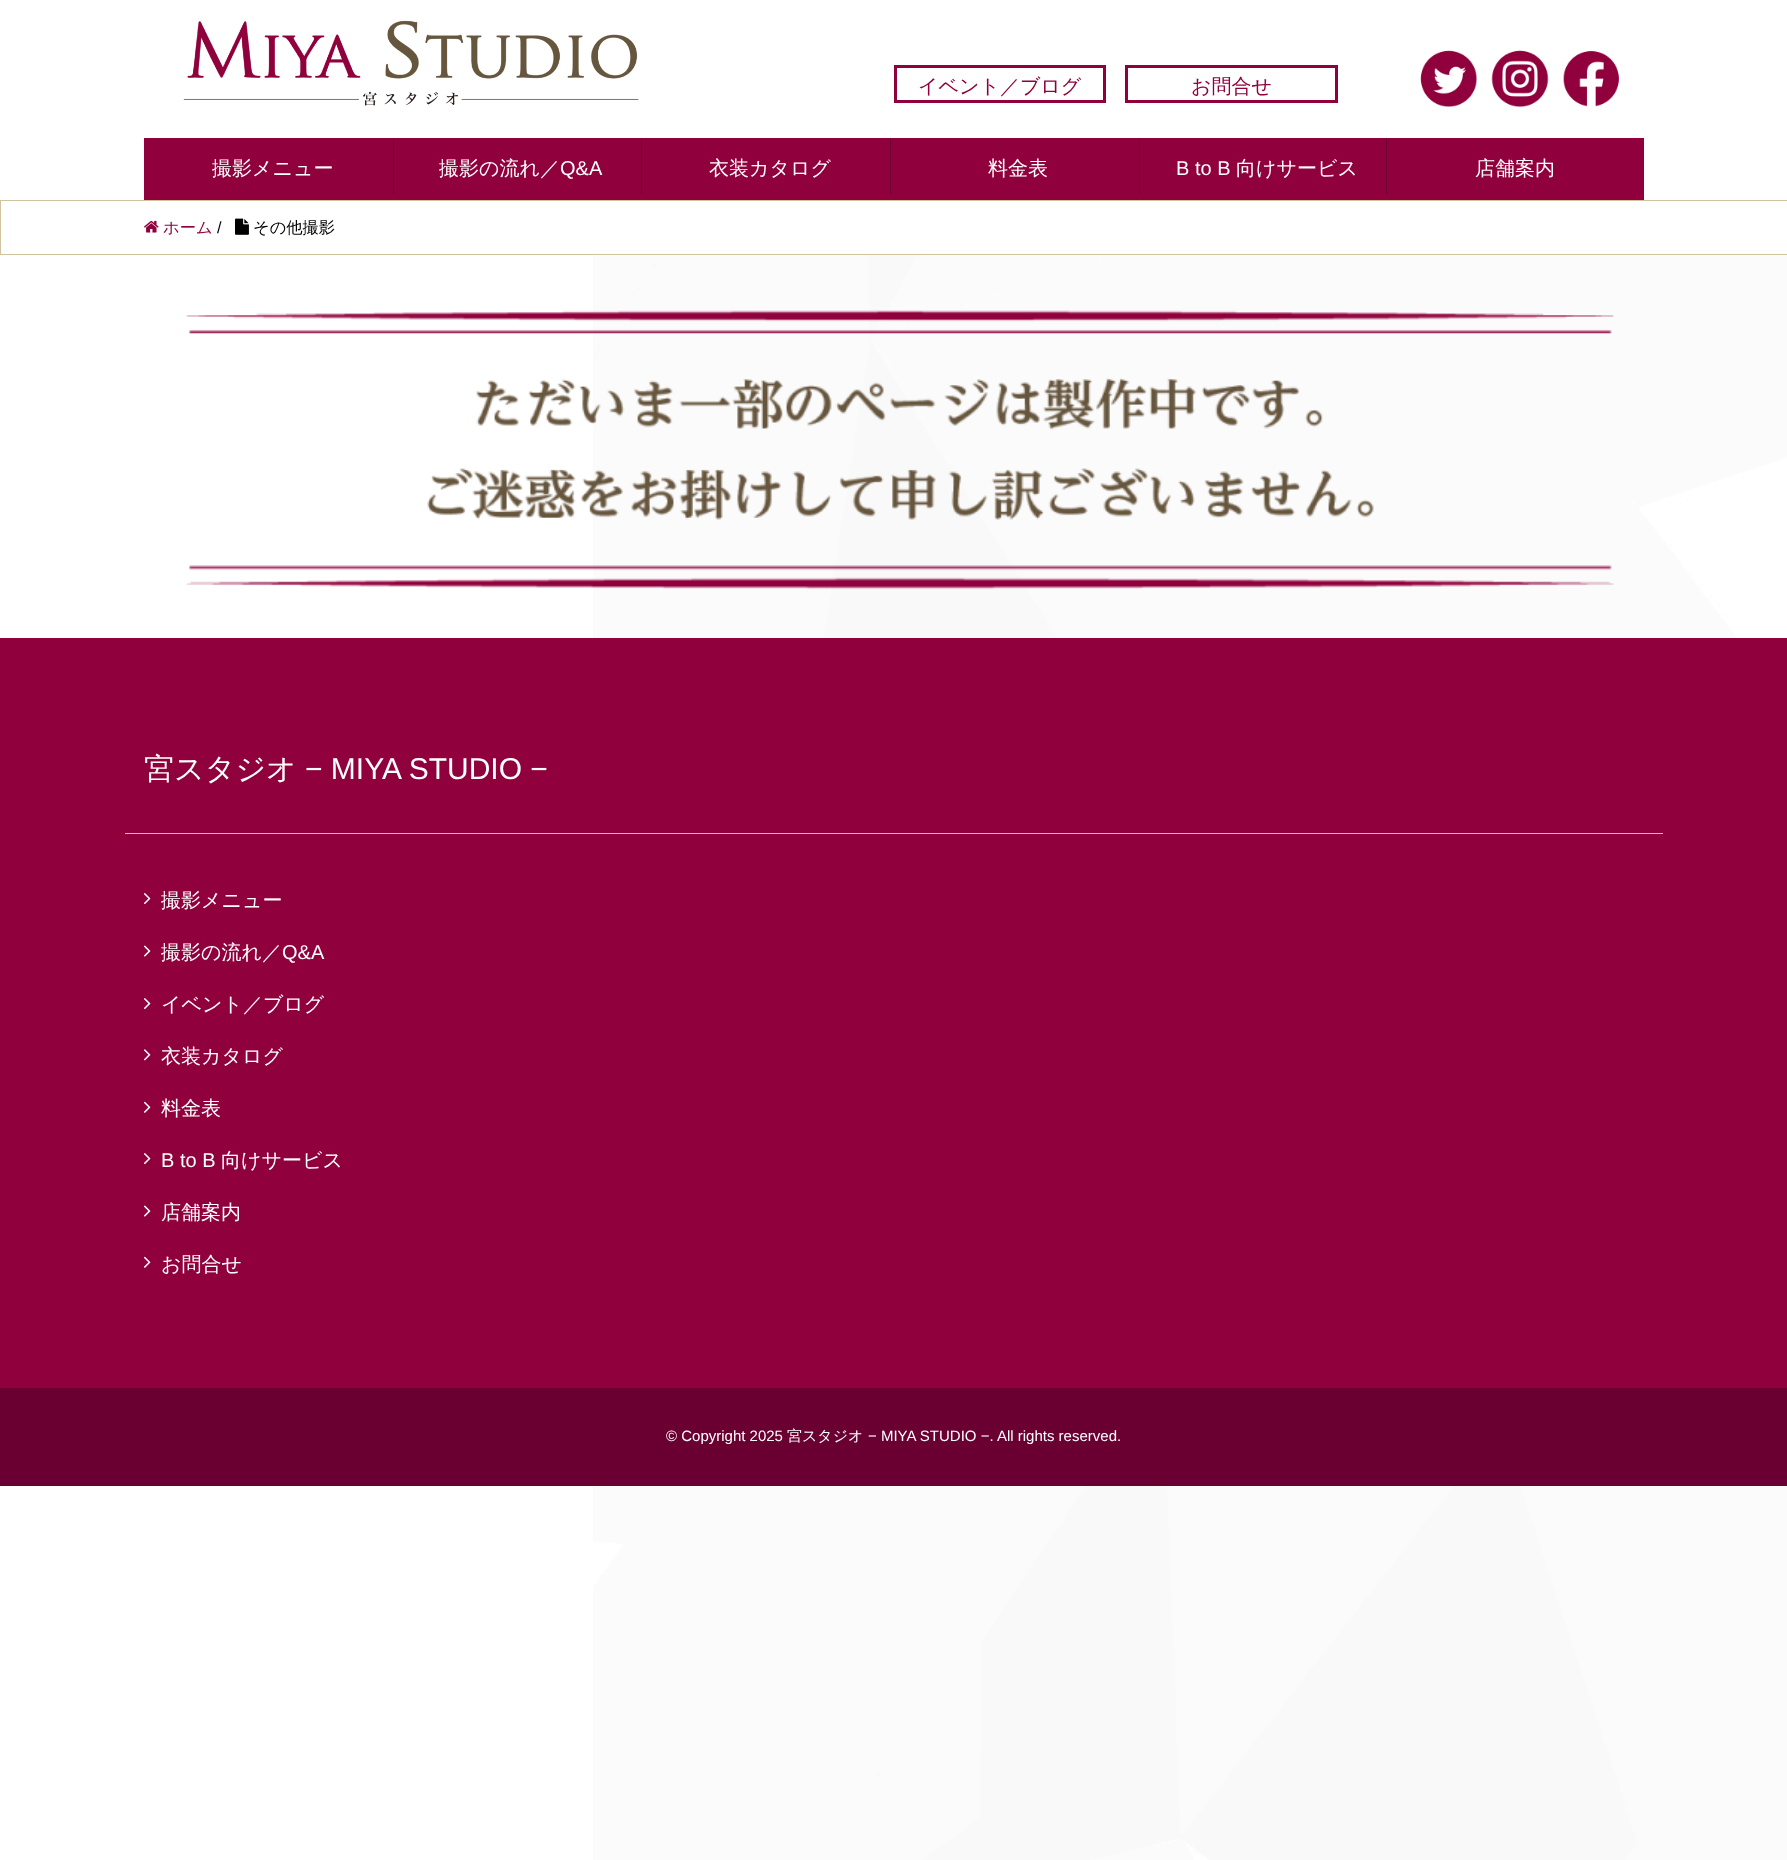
async function draw(canvas) {
  canvas.width = 1787;
  canvas.height = 1860;
  const ctx = canvas.getContext('2d');
  ctx.miterLimit = 4;
  ctx.fontKerning = 'normal';
  function label(s, x, y, font, color) {
    ctx.font = font;
    ctx.fillStyle = color;
    ctx.fillText(s, x, y);
  }
  function rect(x, y, w, h, color) {
    ctx.fillStyle = color;
    ctx.fillRect(x, y, w, h);
  }
  async function image(src, x, y, w, h) {
    const img = new Image();
    img.src = src;
    await img.decode();
    ctx.drawImage(img, x, y, w, h);
  }

  rect(0, 0, 1787, 1860, '#fff');
  await image('assets/img1.png', 593, 255, 1194, 1605);
  await image('assets/img2.png', 183, 20, 456, 86);
  ctx.strokeStyle = '#90003c';
  ctx.lineWidth = 3;
  ctx.strokeRect(895.5, 66.5, 209, 35);
  label('イベント／ブログ', 918, 93, '500 20px WenQuanYi Zen Hei', '#90003c');
  ctx.strokeRect(1126.5, 66.5, 210, 35);
  label('お問合せ', 1191, 93, '500 20px WenQuanYi Zen Hei', '#90003c');
  await image('assets/img3.png', 1420, 50, 57, 57);
  await image('assets/img4.png', 1491, 50, 58, 58);
  await image('assets/img5.png', 1563, 51, 56, 56);
  rect(144, 138, 1500, 62, '#90003c');
  label('撮影メニュー', 212, 175, '500 20px WenQuanYi Zen Hei', '#fff');
  rect(393, 138, 1, 56, '#6a0032');
  label('撮影の流れ／', 439, 175, '500 20px WenQuanYi Zen Hei', '#fff');
  label('Q&A', 560, 175, '20px Liberation Sans', '#fff');
  rect(641, 138, 1, 56, '#6a0032');
  label('衣装カタログ', 709, 175, '500 20px WenQuanYi Zen Hei', '#fff');
  rect(890, 138, 1, 56, '#6a0032');
  label('料金表', 988, 175, '500 20px WenQuanYi Zen Hei', '#fff');
  rect(1139, 138, 1, 56, '#6a0032');
  label('B to B', 1176, 175, '20px Liberation Sans', '#fff');
  label('向けサービス', 1236, 175, '500 20px WenQuanYi Zen Hei', '#fff');
  rect(1386, 138, 1, 56, '#6a0032');
  label('店舗案内', 1475, 175, '500 20px WenQuanYi Zen Hei', '#fff');
  ctx.strokeStyle = '#d1c39f';
  ctx.lineWidth = 1;
  ctx.strokeRect(0.5, 200.5, 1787, 54);
  await image('assets/img6.png', 144, 220, 15, 13);
  label('ホーム', 163, 233, '500 16.25px WenQuanYi Zen Hei', '#90003c');
  label('/', 217, 233, '16.25px Liberation Sans', '#000');
  await image('assets/img7.png', 235, 218, 14, 17);
  label('その他撮影', 253, 233, '500 16.25px WenQuanYi Zen Hei', '#000');
  await image('assets/img8.png', 186, 310, 1428, 280);
  rect(0, 638, 1787, 750, '#90003c');
  rect(125, 833, 1538, 1, '#d1c39f');
  label('宮スタジオ', 144, 779, '500 30px WenQuanYi Zen Hei', '#fff');
  label('− MIYA STUDIO −', 305, 779, '30px Liberation Sans', '#fff');
  await image('assets/img9.png', 143, 893, 8, 12);
  label('撮影メニュー', 161, 907, '500 20px WenQuanYi Zen Hei', '#fff');
  await image('assets/img10.png', 143, 945, 8, 12);
  label('撮影の流れ／', 161, 959, '500 20px WenQuanYi Zen Hei', '#fff');
  label('Q&A', 282, 959, '20px Liberation Sans', '#fff');
  await image('assets/img9.png', 143, 998, 8, 12);
  label('イベント／ブログ', 161, 1011, '500 20px WenQuanYi Zen Hei', '#fff');
  await image('assets/img11.png', 143, 1049, 8, 12);
  label('衣装カタログ', 161, 1063, '500 20px WenQuanYi Zen Hei', '#fff');
  await image('assets/img12.png', 143, 1101, 8, 12);
  label('料金表', 161, 1115, '500 20px WenQuanYi Zen Hei', '#fff');
  await image('assets/img9.png', 143, 1153, 8, 12);
  label('B to B', 161, 1167, '20px Liberation Sans', '#fff');
  label('向けサービス', 221, 1167, '500 20px WenQuanYi Zen Hei', '#fff');
  await image('assets/img10.png', 143, 1205, 8, 12);
  label('店舗案内', 161, 1219, '500 20px WenQuanYi Zen Hei', '#fff');
  await image('assets/img12.png', 143, 1256, 8, 12);
  label('お問合せ', 161, 1271, '500 20px WenQuanYi Zen Hei', '#fff');
  rect(0, 1388, 1787, 98, '#6a0032');
  label('© Copyright 2025', 666, 1441, '15px Liberation Sans', '#fff');
  label('宮スタジオ', 787, 1441, '500 15px WenQuanYi Zen Hei', '#fff');
  label('− MIYA STUDIO −. All rights reserved.', 868, 1441, '15px Liberation Sans', '#fff');
}

draw(document.querySelector('canvas'));
